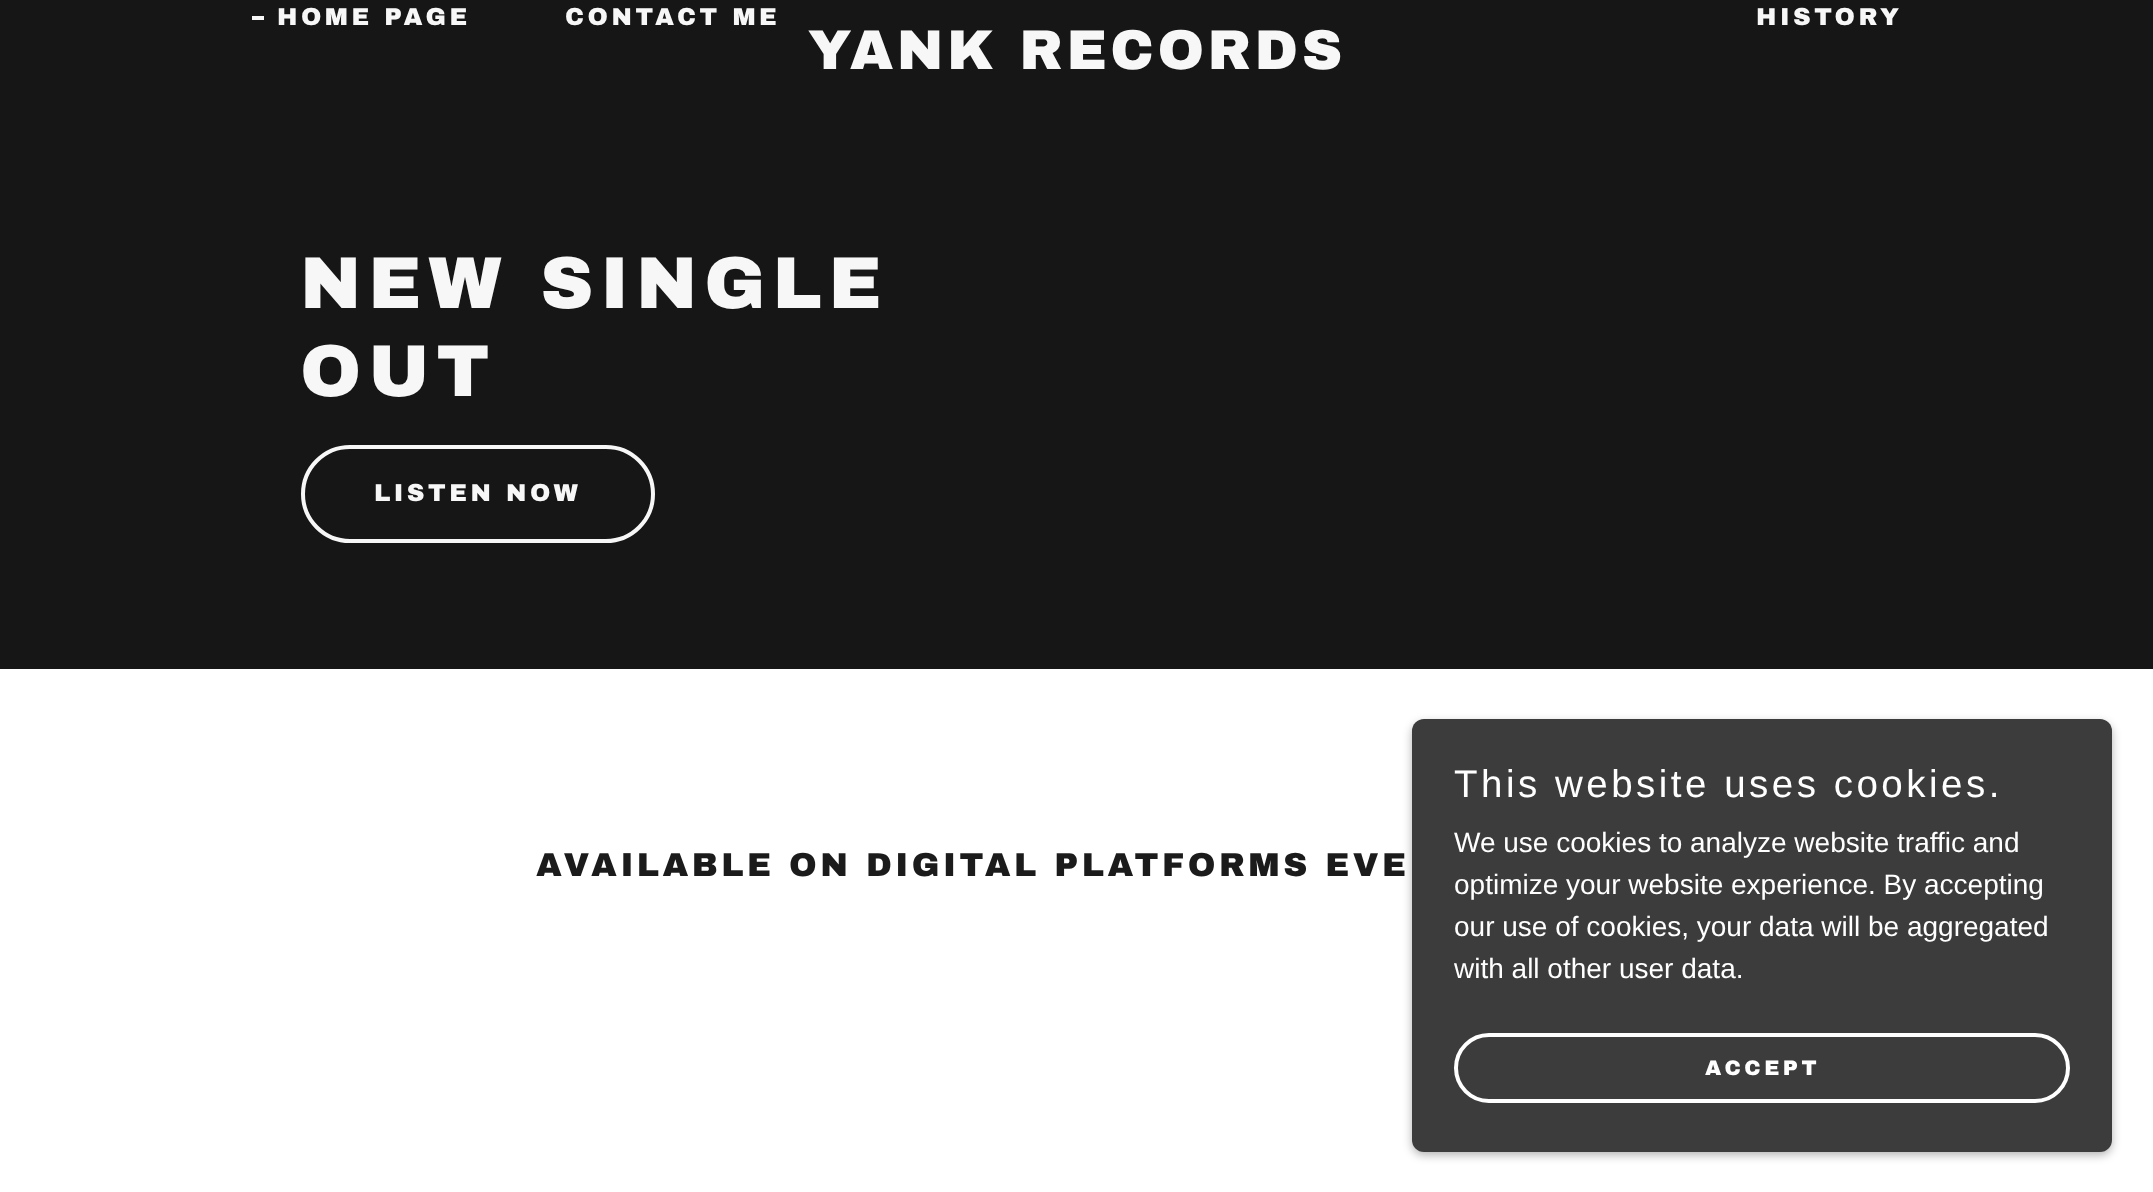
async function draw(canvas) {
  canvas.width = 2153;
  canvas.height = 1192;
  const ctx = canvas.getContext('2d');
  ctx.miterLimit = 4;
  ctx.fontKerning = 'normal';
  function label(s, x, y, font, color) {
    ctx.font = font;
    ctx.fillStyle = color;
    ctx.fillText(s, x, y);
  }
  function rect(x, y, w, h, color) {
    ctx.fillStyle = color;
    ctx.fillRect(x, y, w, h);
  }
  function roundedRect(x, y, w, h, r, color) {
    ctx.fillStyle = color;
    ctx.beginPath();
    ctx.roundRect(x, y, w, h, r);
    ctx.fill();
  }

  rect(0, 0, 2153, 1192, '#161616');
  rect(252, 16, 12, 4, '#f7f7f7');
  ctx.letterSpacing = '3.5px';
  label('HOME PAGE', 277, 25, '900 24.5px Archivo Black', '#f7f7f7');
  label('CONTACT ME', 565, 25, '900 24.5px Archivo Black', '#f7f7f7');
  label('HISTORY', 1756, 25, '900 24.5px Archivo Black', '#f7f7f7');
  label('YANK RECORDS', 808, 69, '900 56px Archivo Black', '#f7f7f7');
  ctx.letterSpacing = '7px';
  label('NEW SINGLE', 300, 308, '900 73.5px Archivo Black', '#f7f7f7');
  label('OUT', 300, 396, '900 73.5px Archivo Black', '#f7f7f7');
  ctx.beginPath();
  ctx.roundRect(303, 447, 350, 94, 47);
  ctx.strokeStyle = '#f7f7f7';
  ctx.lineWidth = 4;
  ctx.stroke();
  ctx.letterSpacing = '3.5px';
  label('LISTEN NOW', 374, 501, '900 24.5px Archivo Black', '#f7f7f7');
  rect(0, 669, 2153, 523, '#fff');
  label('AVAILABLE ON DIGITAL PLATFORMS EVE', 536, 876, '900 33.25px Archivo Black', '#1b1b1b');
  ctx.fillStyle = '#0000004d';
  ctx.filter = 'blur(5px)';
  ctx.beginPath();
  ctx.roundRect(1412, 723, 700, 432, 12);
  ctx.fill();
  ctx.filter = 'none';
  roundedRect(1412, 719, 700, 433, 12, '#3c3c3c');
  label('This website uses cookies.', 1454, 797, '38.5px Liberation Sans', '#fff');
  ctx.letterSpacing = '0px';
  label('We use cookies to analyze website traffic and', 1454, 852, '28px Liberation Sans', '#fff');
  label('optimize your website experience. By accepting', 1454, 894, '28px Liberation Sans', '#fff');
  label('our use of cookies, your data will be aggregated', 1454, 936, '28px Liberation Sans', '#fff');
  label('with all other user data.', 1454, 978, '28px Liberation Sans', '#fff');
  ctx.beginPath();
  ctx.roundRect(1456, 1035, 612, 66, 33);
  ctx.strokeStyle = '#fff';
  ctx.stroke();
  ctx.letterSpacing = '3.5px';
  label('ACCEPT', 1705, 1075, '900 21px Archivo Black', '#fff');
}

draw(document.querySelector('canvas'));
